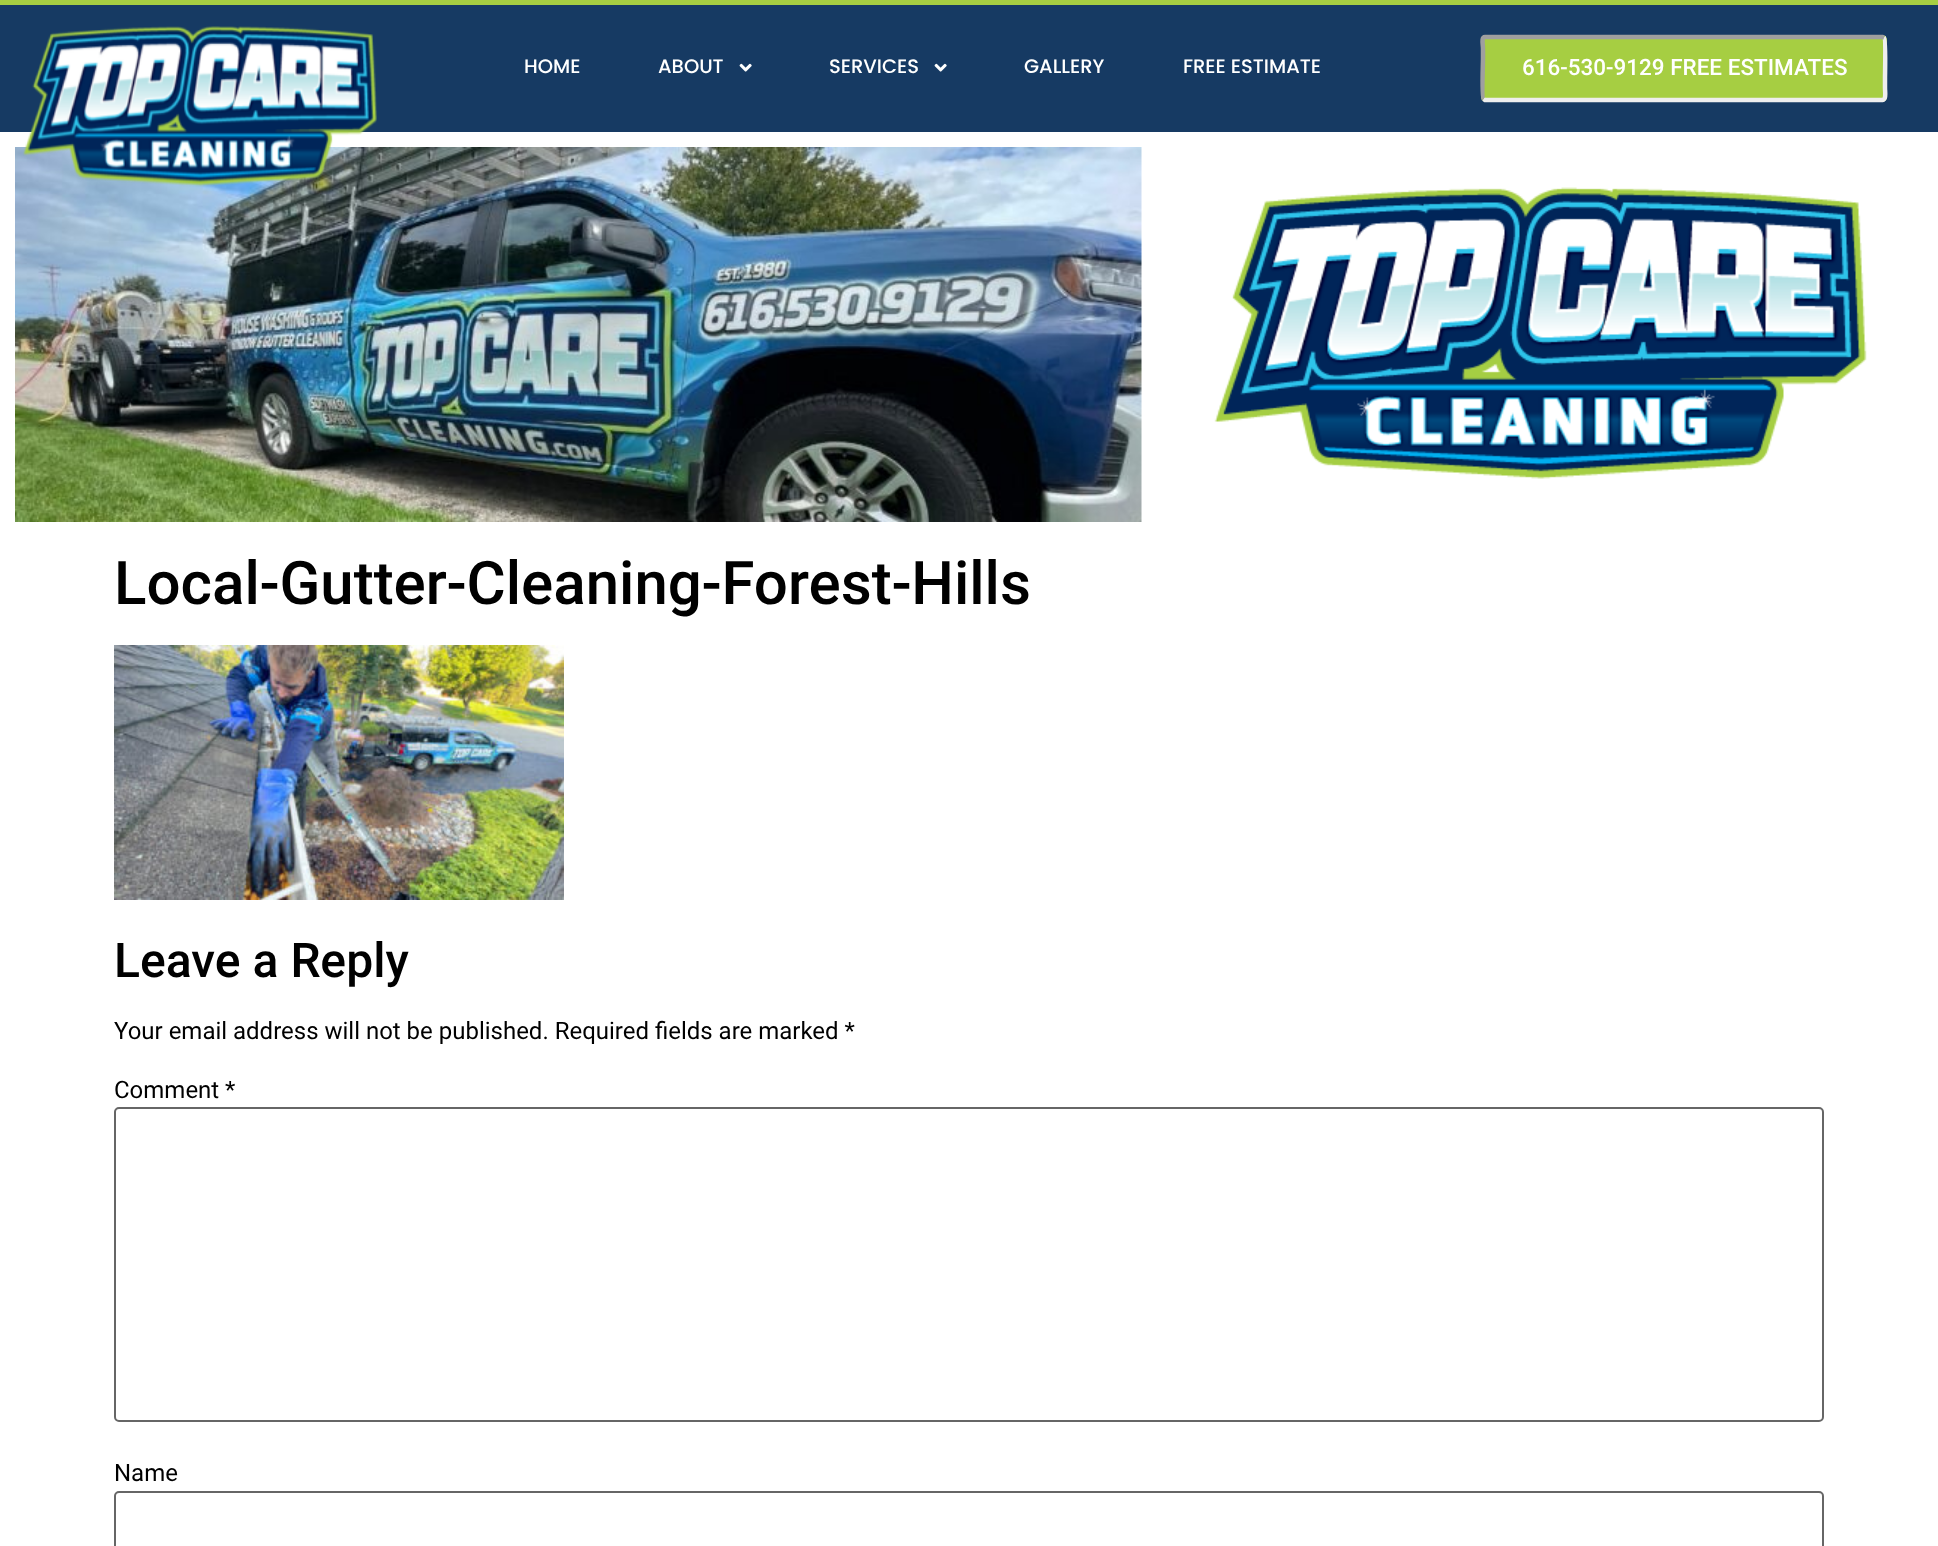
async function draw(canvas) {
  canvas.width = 1938;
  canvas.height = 1546;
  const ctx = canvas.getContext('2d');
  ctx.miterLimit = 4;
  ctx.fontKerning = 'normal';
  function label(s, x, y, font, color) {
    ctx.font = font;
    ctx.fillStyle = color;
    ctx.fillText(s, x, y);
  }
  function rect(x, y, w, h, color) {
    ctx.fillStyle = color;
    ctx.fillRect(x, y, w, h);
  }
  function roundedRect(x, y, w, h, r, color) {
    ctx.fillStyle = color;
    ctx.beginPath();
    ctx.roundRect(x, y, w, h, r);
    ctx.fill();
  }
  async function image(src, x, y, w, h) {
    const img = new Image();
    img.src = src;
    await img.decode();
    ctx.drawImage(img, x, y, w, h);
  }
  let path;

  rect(0, 0, 1938, 1546, '#fff');
  rect(0, 5, 1938, 127, '#163a63');
  rect(0, 0, 1938, 5, '#a6ce42');
  await image('assets/img3.png', 15, 147, 1127, 375);
  await image('assets/img1.png', 23, 26, 354, 161);
  label('HOME', 524, 73, '500 19.5px Poppins', '#fff');
  label('ABOUT', 658, 73, '500 19.5px Poppins', '#fff');
  await image('assets/img2.png', 739, 63, 13, 9);
  label('SERVICES', 829, 73, '500 19.5px Poppins', '#fff');
  await image('assets/img2.png', 934, 63, 13, 9);
  label('GALLERY', 1024, 73, '500 19.5px Poppins', '#fff');
  label('FREE ESTIMATE', 1183, 73, '500 19.5px Poppins', '#fff');
  roundedRect(1481, 35, 406, 67, 5, '#a6ce42');
  path = new Path2D('M1884 37.5C1886 39 1885 73 1885 78V88C1885 92 1886.5 99.5 1882.5 100H1485L1483.5 99');
  ctx.strokeStyle = '#eee';
  ctx.lineWidth = 4.5;
  ctx.stroke(path);
  path = new Path2D('M1483.5 99C1481.5 97.5 1483 63.5 1483 58.5V49C1483 44.5 1481 37 1485 37H1882.5L1884 37.5');
  ctx.strokeStyle = '#9f9f9f';
  ctx.stroke(path);
  label('616-530-9129 FREE ESTIMATES', 1522, 75, '500 22.5px Roboto', '#fff');
  await image('assets/img4.png', 1214, 187, 653, 292);
  label('Local-Gutter-Cleaning-Forest-Hills', 114, 604, '500 60px Roboto', '#000');
  await image('assets/img5.png', 114, 645, 450, 255);
  label('Leave a Reply', 114, 977, '500 48px Roboto', '#000');
  label('Your email address will not be published. Required fields are marked *', 114, 1039, '24px Roboto', '#000');
  label('Comment *', 114, 1098, '24px Roboto', '#000');
  ctx.beginPath();
  ctx.roundRect(115, 1108, 1708, 313, 4);
  ctx.strokeStyle = '#666';
  ctx.lineWidth = 2;
  ctx.stroke();
  label('Name', 114, 1481, '24px Roboto', '#000');
  ctx.beginPath();
  ctx.roundRect(115, 1492, 1708, 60, 4);
  ctx.stroke();
}

draw(document.querySelector('canvas'));
